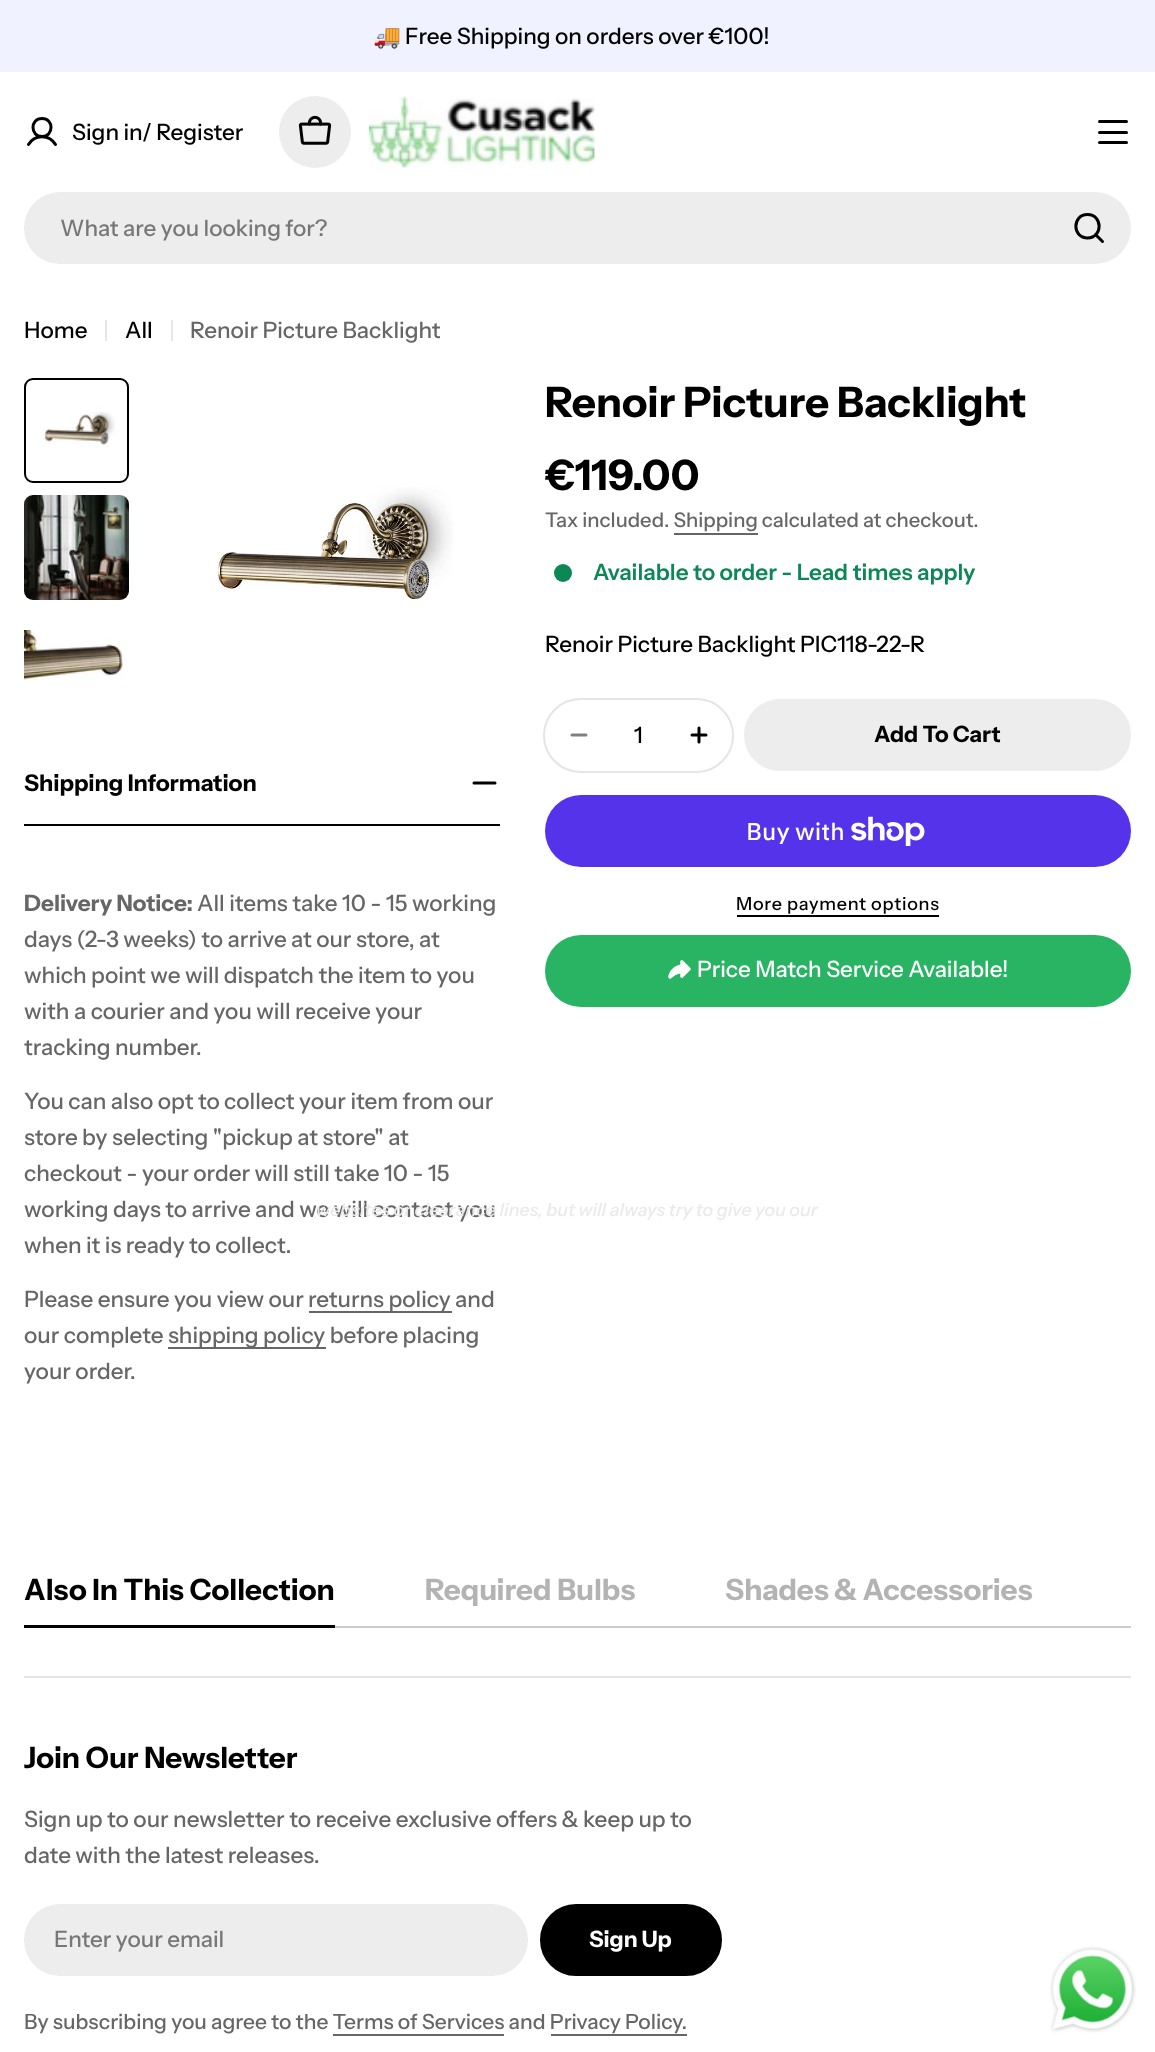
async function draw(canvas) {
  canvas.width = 1155;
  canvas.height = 2052;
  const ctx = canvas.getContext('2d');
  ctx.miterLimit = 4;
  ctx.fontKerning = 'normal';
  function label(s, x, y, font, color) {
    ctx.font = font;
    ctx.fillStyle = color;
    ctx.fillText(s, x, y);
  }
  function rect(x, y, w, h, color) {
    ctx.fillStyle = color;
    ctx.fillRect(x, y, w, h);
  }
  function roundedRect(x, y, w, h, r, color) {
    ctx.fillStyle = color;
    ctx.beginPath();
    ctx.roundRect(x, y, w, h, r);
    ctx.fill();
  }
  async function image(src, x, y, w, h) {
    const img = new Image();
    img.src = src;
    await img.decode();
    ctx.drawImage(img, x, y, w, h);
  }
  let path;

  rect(0, 0, 1155, 2052, '#fff');
  rect(0, 0, 1155, 72, '#f0f2ff');
  label('🚚', 373, 44, '22.5px Noto Color Emoji', '#000');
  label('Free Shipping on orders over €100!', 405, 44, '500 22.5px Instrument Sans', '#000');
  path = new Path2D('M42 136.5C54 136.5 54 118.5 42 118.5C30 118.5 30 136.5 42 136.5ZM28.5 144.5C34.5 134 49.5 134 55.5 144.5');
  ctx.strokeStyle = '#000';
  ctx.lineWidth = 3;
  ctx.lineCap = 'round';
  ctx.lineJoin = 'round';
  ctx.stroke(path);
  label('Sign in/ Register', 72, 140, '500 22.5px Instrument Sans', '#000');
  ctx.fillStyle = '#ededed';
  ctx.beginPath();
  ctx.arc(315, 132, 36, 0, 2 * Math.PI);
  ctx.fill();
  await image('assets/img1.png', 298, 115, 34, 30);
  await image('assets/img2.png', 369, 96, 226, 72);
  roundedRect(1098, 131, 30, 3, 1.5, '#000');
  roundedRect(1098, 120, 30, 3, 1.5, '#000');
  roundedRect(1098, 141, 30, 3, 1.5, '#000');
  roundedRect(24, 192, 1107, 72, 36, '#ededed');
  label('What are you looking for?', 60, 236, '500 22.5px Instrument Sans', '#777');
  path = new Path2D('M1087.5 238C1103 238 1103 214.5 1087.5 214.5C1072 214.5 1072 238 1087.5 238ZM1095.5 234.5L1102.5 241.5');
  ctx.stroke(path);
  label('Home', 24, 338, '500 22.5px Instrument Sans', '#000');
  rect(105, 320, 2, 21, '#e6e6e6');
  label('All', 125, 338, '500 22.5px Instrument Sans', '#000');
  rect(171, 320, 2, 21, '#e6e6e6');
  label('Renoir Picture Backlight', 190, 338, '500 22.5px Instrument Sans', '#666');
  await image('assets/img3.png', 44, 411, 72, 37);
  ctx.beginPath();
  ctx.roundRect(25, 379, 103, 103, 8);
  ctx.lineWidth = 2;
  ctx.lineJoin = 'miter';
  ctx.stroke();
  await image('assets/img4.png', 24, 495, 105, 105);
  await image('assets/img5.png', 24, 630, 100, 50);
  await image('assets/img6.png', 217, 487, 236, 113);
  rect(24, 824, 476, 2, '#000');
  label('Shipping Information', 24, 791, 'bold 23.1px Instrument Sans', '#000');
  path = new Path2D('M474 783H495M474 783H495');
  ctx.lineWidth = 3;
  ctx.lineJoin = 'round';
  ctx.stroke(path);
  label('Delivery Notice:', 24, 911, 'bold 22.5px Instrument Sans', '#666');
  label('All items take 10 - 15 working', 197, 911, '500 22.5px Instrument Sans', '#666');
  label('days (2-3 weeks) to arrive at our store, at', 24, 947, '500 22.5px Instrument Sans', '#666');
  label('which point we will dispatch the item to you', 24, 983, '500 22.5px Instrument Sans', '#666');
  label('with a courier and you will receive your', 24, 1019, '500 22.5px Instrument Sans', '#666');
  label('tracking number.', 24, 1055, '500 22.5px Instrument Sans', '#666');
  label('You can also opt to collect your item from our', 24, 1109, '500 22.5px Instrument Sans', '#666');
  label('store by selecting "pickup at store" at', 24, 1145, '500 22.5px Instrument Sans', '#666');
  label('checkout - your order will still take 10 - 15', 24, 1181, '500 22.5px Instrument Sans', '#666');
  label('working days to arrive and we will contact you', 24, 1217, '500 22.5px Instrument Sans', '#666');
  label('when it is ready to collect.', 24, 1253, '500 22.5px Instrument Sans', '#666');
  label('Please ensure you view our', 24, 1307, '500 22.5px Instrument Sans', '#666');
  rect(309, 1311, 143, 2, '#666');
  label('returns policy and', 308, 1307, '500 22.5px Instrument Sans', '#666');
  label('our complete', 24, 1343, '500 22.5px Instrument Sans', '#666');
  rect(168, 1347, 158, 2, '#666');
  label('shipping policy before placing', 168, 1343, '500 22.5px Instrument Sans', '#666');
  label('your order.', 24, 1379, '500 22.5px Instrument Sans', '#666');
  label('Renoir Picture Backlight', 545, 417, 'bold 42px Instrument Sans', '#000');
  label('€119.00', 545, 490, 'bold 42px Instrument Sans', '#000');
  label('Tax included. Shipping calculated at checkout.', 545, 527, '500 20.25px Instrument Sans', '#666');
  rect(674, 533, 84, 2, '#666');
  ctx.fillStyle = '#0d8756';
  ctx.beginPath();
  ctx.arc(563, 573, 9, 0, 2 * Math.PI);
  ctx.fill();
  label('Available to order - Lead times apply', 593, 580, '600 22.5px Instrument Sans', '#0d8756');
  label('Renoir Picture Backlight PIC118-22-R', 545, 652, '500 22.5px Instrument Sans', '#000');
  ctx.beginPath();
  ctx.roundRect(544, 699, 189, 73, 36.5);
  ctx.strokeStyle = '#e5e5e5';
  ctx.lineWidth = 2;
  ctx.lineJoin = 'miter';
  ctx.stroke();
  path = new Path2D('M572 735H586');
  ctx.strokeStyle = '#808080';
  ctx.lineWidth = 3;
  ctx.lineJoin = 'round';
  ctx.stroke(path);
  label('1', 634, 743, '500 22.5px Instrument Sans', '#000');
  path = new Path2D('M692 735H706M699 728V742');
  ctx.strokeStyle = '#000';
  ctx.stroke(path);
  ctx.fillStyle = '#ededed';
  ctx.beginPath();
  ctx.roundRect(745, 700, 385, 70, 35);
  ctx.fill();
  ctx.strokeStyle = '#ededed';
  ctx.lineWidth = 2;
  ctx.lineJoin = 'miter';
  ctx.stroke();
  label('Add To Cart', 874, 742, 'bold 22.5px Instrument Sans', '#000');
  roundedRect(545, 795, 586, 72, 36, '#5433eb');
  label('Buy with', 746, 840, '500 24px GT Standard', '#fff');
  await image('assets/img7.png', 851, 816, 74, 30);
  ctx.letterSpacing = '0.75px';
  label('More payment options', 736, 910, '500 18px Instrument Sans', '#000');
  rect(737, 915, 202, 2, '#000');
  roundedRect(545, 935, 586, 72, 36, '#28b463');
  await image('assets/img8.png', 668, 960, 23, 19);
  ctx.letterSpacing = '0px';
  label('Price Match Service Available!', 697, 977, '500 22.5px Instrument Sans', '#fff');
  label('websites or clearance lines, but will always try to give you our', 316, 1216, 'italic 500 18px Instrument Sans', '#eaeaea');
  label('Also In This Collection', 24, 1600, 'bold 29.4px Instrument Sans', '#000');
  rect(24, 1625, 311, 3, '#000');
  label('Required Bulbs', 425, 1600, 'bold 29.4px Instrument Sans', '#b3b3b3');
  label('Shades & Accessories', 725, 1600, 'bold 29.4px Instrument Sans', '#b3b3b3');
  rect(335, 1626, 796, 2, '#ccc');
  rect(24, 1676, 1107, 2, '#e5e5e5');
  label('Join Our Newsletter', 24, 1768, 'bold 29.4px Instrument Sans', '#000');
  label('Sign up to our newsletter to receive exclusive offers & keep up to', 24, 1827, '500 22.5px Instrument Sans', '#666');
  label('date with the latest releases.', 24, 1863, '500 22.5px Instrument Sans', '#666');
  roundedRect(24, 1904, 504, 72, 36, '#ededed');
  label('Enter your email', 54, 1947, '500 22.5px Instrument Sans', '#777');
  ctx.fillStyle = '#000';
  ctx.beginPath();
  ctx.roundRect(541, 1905, 180, 70, 35);
  ctx.fill();
  ctx.strokeStyle = '#000';
  ctx.stroke();
  label('Sign Up', 589, 1947, 'bold 22.5px Instrument Sans', '#fff');
  label('By subscribing you agree to the Terms of Services and Privacy Policy.', 24, 2029, '500 21px Instrument Sans', '#666');
  rect(333, 2034, 171, 2, '#666');
  rect(551, 2034, 136, 2, '#666');
  await image('assets/img9.png', 1050, 1946, 86, 87);
}

draw(document.querySelector('canvas'));
